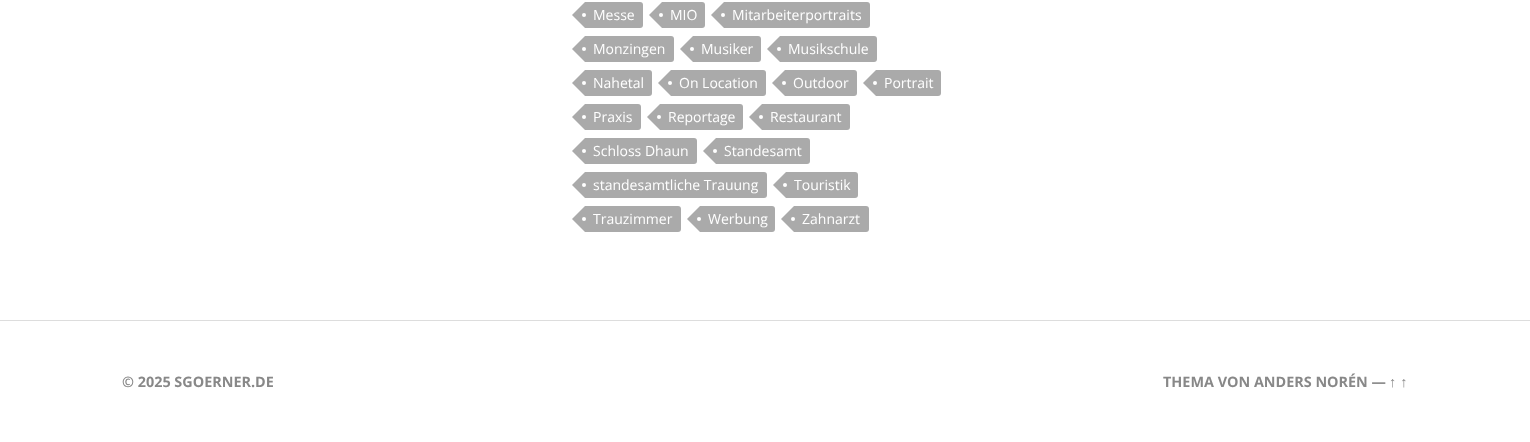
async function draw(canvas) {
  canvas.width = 1530;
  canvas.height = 442;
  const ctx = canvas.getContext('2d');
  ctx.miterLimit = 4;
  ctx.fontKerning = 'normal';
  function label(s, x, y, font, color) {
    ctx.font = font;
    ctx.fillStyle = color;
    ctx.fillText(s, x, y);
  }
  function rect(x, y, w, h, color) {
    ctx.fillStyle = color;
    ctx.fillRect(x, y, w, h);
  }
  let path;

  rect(0, 0, 1530, 442, '#fff');
  ctx.fillStyle = '#aaa';
  ctx.beginPath();
  ctx.roundRect(585, 2, 58, 26, [0, 3, 3, 0]);
  ctx.fill();
  path = new Path2D('M585 2V28L572 15Z');
  ctx.fill(path);
  label('Messe', 593, 20, '14px Open Sans', '#fff');
  ctx.beginPath();
  ctx.arc(584, 15, 2, 0, 2 * Math.PI);
  ctx.fill();
  ctx.fillStyle = '#aaa';
  ctx.beginPath();
  ctx.roundRect(662, 2, 43, 26, [0, 3, 3, 0]);
  ctx.fill();
  path = new Path2D('M662 2V28L649 15Z');
  ctx.fill(path);
  label('MIO', 670, 20, '14px Open Sans', '#fff');
  ctx.beginPath();
  ctx.arc(661, 15, 2, 0, 2 * Math.PI);
  ctx.fill();
  ctx.fillStyle = '#aaa';
  ctx.beginPath();
  ctx.roundRect(724, 2, 146, 26, [0, 3, 3, 0]);
  ctx.fill();
  path = new Path2D('M724 2V28L711 15Z');
  ctx.fill(path);
  label('Mitarbeiterportraits', 732, 20, '14px Open Sans', '#fff');
  ctx.beginPath();
  ctx.arc(723, 15, 2, 0, 2 * Math.PI);
  ctx.fill();
  ctx.fillStyle = '#aaa';
  ctx.beginPath();
  ctx.roundRect(585, 36, 89, 26, [0, 3, 3, 0]);
  ctx.fill();
  path = new Path2D('M585 36V62L572 49Z');
  ctx.fill(path);
  label('Monzingen', 593, 54, '14px Open Sans', '#fff');
  ctx.beginPath();
  ctx.arc(584, 49, 2, 0, 2 * Math.PI);
  ctx.fill();
  ctx.fillStyle = '#aaa';
  ctx.beginPath();
  ctx.roundRect(693, 36, 68, 26, [0, 3, 3, 0]);
  ctx.fill();
  path = new Path2D('M693 36V62L680 49Z');
  ctx.fill(path);
  label('Musiker', 701, 54, '14px Open Sans', '#fff');
  ctx.beginPath();
  ctx.arc(692, 49, 2, 0, 2 * Math.PI);
  ctx.fill();
  ctx.fillStyle = '#aaa';
  ctx.beginPath();
  ctx.roundRect(780, 36, 97, 26, [0, 3, 3, 0]);
  ctx.fill();
  path = new Path2D('M780 36V62L767 49Z');
  ctx.fill(path);
  label('Musikschule', 788, 54, '14px Open Sans', '#fff');
  ctx.beginPath();
  ctx.arc(779, 49, 2, 0, 2 * Math.PI);
  ctx.fill();
  ctx.fillStyle = '#aaa';
  ctx.beginPath();
  ctx.roundRect(585, 70, 67, 26, [0, 3, 3, 0]);
  ctx.fill();
  path = new Path2D('M585 70V96L572 83Z');
  ctx.fill(path);
  label('Nahetal', 593, 88, '14px Open Sans', '#fff');
  ctx.beginPath();
  ctx.arc(584, 83, 2, 0, 2 * Math.PI);
  ctx.fill();
  ctx.fillStyle = '#aaa';
  ctx.beginPath();
  ctx.roundRect(671, 70, 95, 26, [0, 3, 3, 0]);
  ctx.fill();
  path = new Path2D('M671 70V96L658 83Z');
  ctx.fill(path);
  label('On Location', 679, 88, '14px Open Sans', '#fff');
  ctx.beginPath();
  ctx.arc(670, 83, 2, 0, 2 * Math.PI);
  ctx.fill();
  ctx.fillStyle = '#aaa';
  ctx.beginPath();
  ctx.roundRect(785, 70, 72, 26, [0, 3, 3, 0]);
  ctx.fill();
  path = new Path2D('M785 70V96L772 83Z');
  ctx.fill(path);
  label('Outdoor', 793, 88, '14px Open Sans', '#fff');
  ctx.beginPath();
  ctx.arc(784, 83, 2, 0, 2 * Math.PI);
  ctx.fill();
  ctx.fillStyle = '#aaa';
  ctx.beginPath();
  ctx.roundRect(876, 70, 65, 26, [0, 3, 3, 0]);
  ctx.fill();
  path = new Path2D('M876 70V96L863 83Z');
  ctx.fill(path);
  label('Portrait', 884, 88, '14px Open Sans', '#fff');
  ctx.beginPath();
  ctx.arc(875, 83, 2, 0, 2 * Math.PI);
  ctx.fill();
  ctx.fillStyle = '#aaa';
  ctx.beginPath();
  ctx.roundRect(585, 104, 56, 26, [0, 3, 3, 0]);
  ctx.fill();
  path = new Path2D('M585 104V130L572 117Z');
  ctx.fill(path);
  label('Praxis', 593, 122, '14px Open Sans', '#fff');
  ctx.beginPath();
  ctx.arc(584, 117, 2, 0, 2 * Math.PI);
  ctx.fill();
  ctx.fillStyle = '#aaa';
  ctx.beginPath();
  ctx.roundRect(660, 104, 83, 26, [0, 3, 3, 0]);
  ctx.fill();
  path = new Path2D('M660 104V130L647 117Z');
  ctx.fill(path);
  label('Reportage', 668, 122, '14px Open Sans', '#fff');
  ctx.beginPath();
  ctx.arc(659, 117, 2, 0, 2 * Math.PI);
  ctx.fill();
  ctx.fillStyle = '#aaa';
  ctx.beginPath();
  ctx.roundRect(762, 104, 88, 26, [0, 3, 3, 0]);
  ctx.fill();
  path = new Path2D('M762 104V130L749 117Z');
  ctx.fill(path);
  label('Restaurant', 770, 122, '14px Open Sans', '#fff');
  ctx.beginPath();
  ctx.arc(761, 117, 2, 0, 2 * Math.PI);
  ctx.fill();
  ctx.fillStyle = '#aaa';
  ctx.beginPath();
  ctx.roundRect(585, 138, 112, 26, [0, 3, 3, 0]);
  ctx.fill();
  path = new Path2D('M585 138V164L572 151Z');
  ctx.fill(path);
  label('Schloss Dhaun', 593, 156, '14px Open Sans', '#fff');
  ctx.beginPath();
  ctx.arc(584, 151, 2, 0, 2 * Math.PI);
  ctx.fill();
  ctx.fillStyle = '#aaa';
  ctx.beginPath();
  ctx.roundRect(716, 138, 94, 26, [0, 3, 3, 0]);
  ctx.fill();
  path = new Path2D('M716 138V164L703 151Z');
  ctx.fill(path);
  label('Standesamt', 724, 156, '14px Open Sans', '#fff');
  ctx.beginPath();
  ctx.arc(715, 151, 2, 0, 2 * Math.PI);
  ctx.fill();
  ctx.fillStyle = '#aaa';
  ctx.beginPath();
  ctx.roundRect(585, 172, 182, 26, [0, 3, 3, 0]);
  ctx.fill();
  path = new Path2D('M585 172V198L572 185Z');
  ctx.fill(path);
  label('standesamtliche Trauung', 593, 190, '14px Open Sans', '#fff');
  ctx.beginPath();
  ctx.arc(584, 185, 2, 0, 2 * Math.PI);
  ctx.fill();
  ctx.fillStyle = '#aaa';
  ctx.beginPath();
  ctx.roundRect(786, 172, 72, 26, [0, 3, 3, 0]);
  ctx.fill();
  path = new Path2D('M786 172V198L773 185Z');
  ctx.fill(path);
  label('Touristik', 794, 190, '14px Open Sans', '#fff');
  ctx.beginPath();
  ctx.arc(785, 185, 2, 0, 2 * Math.PI);
  ctx.fill();
  ctx.fillStyle = '#aaa';
  ctx.beginPath();
  ctx.roundRect(585, 206, 96, 26, [0, 3, 3, 0]);
  ctx.fill();
  path = new Path2D('M585 206V232L572 219Z');
  ctx.fill(path);
  label('Trauzimmer', 593, 224, '14px Open Sans', '#fff');
  ctx.beginPath();
  ctx.arc(584, 219, 2, 0, 2 * Math.PI);
  ctx.fill();
  ctx.fillStyle = '#aaa';
  ctx.beginPath();
  ctx.roundRect(700, 206, 75, 26, [0, 3, 3, 0]);
  ctx.fill();
  path = new Path2D('M700 206V232L687 219Z');
  ctx.fill(path);
  label('Werbung', 708, 224, '14px Open Sans', '#fff');
  ctx.beginPath();
  ctx.arc(699, 219, 2, 0, 2 * Math.PI);
  ctx.fill();
  ctx.fillStyle = '#aaa';
  ctx.beginPath();
  ctx.roundRect(794, 206, 75, 26, [0, 3, 3, 0]);
  ctx.fill();
  path = new Path2D('M794 206V232L781 219Z');
  ctx.fill(path);
  label('Zahnarzt', 802, 224, '14px Open Sans', '#fff');
  ctx.beginPath();
  ctx.arc(793, 219, 2, 0, 2 * Math.PI);
  ctx.fill();
  rect(0, 320, 1530, 1, '#ddd');
  label('© 2025 SGOERNER.DE', 122, 387, 'bold 14.4px Open Sans', '#888');
  label('THEMA VON ANDERS NORÉN —', 1163, 387, 'bold 14.4px Open Sans', '#888');
  label('↑ ↑', 1389, 387, 'bold 14.4px Liberation Sans', '#888');
}

draw(document.querySelector('canvas'));
